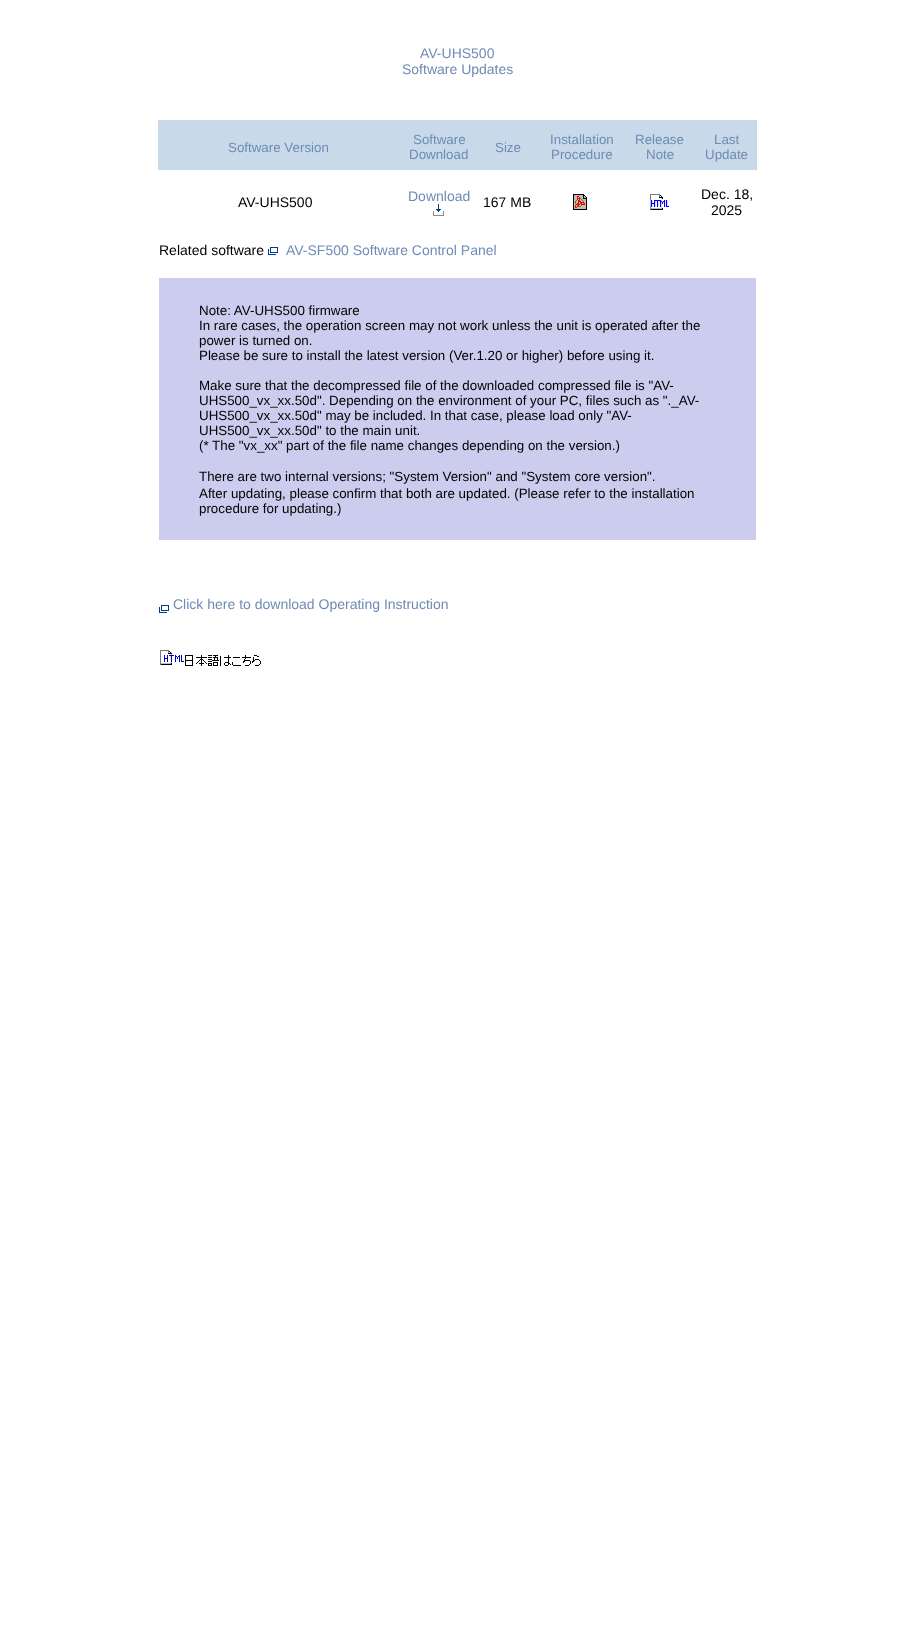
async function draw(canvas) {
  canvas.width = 915;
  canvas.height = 1629;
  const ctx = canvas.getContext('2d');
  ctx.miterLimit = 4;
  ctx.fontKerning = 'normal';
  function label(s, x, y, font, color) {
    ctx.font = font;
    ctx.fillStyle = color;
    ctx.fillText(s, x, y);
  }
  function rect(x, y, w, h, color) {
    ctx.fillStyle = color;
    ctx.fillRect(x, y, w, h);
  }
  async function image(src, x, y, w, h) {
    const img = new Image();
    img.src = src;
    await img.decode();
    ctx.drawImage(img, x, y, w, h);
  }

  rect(0, 0, 915, 1629, '#fff');
  label('AV-UHS500', 420, 58, '14px Liberation Sans', '#6f8bb3');
  label('Software Updates', 402, 74, '14px Liberation Sans', '#6f8bb3');
  rect(158, 120, 599, 50, '#c8daea');
  label('Software Version', 228, 152, '13.35px Liberation Sans', '#6f8bb3');
  label('Software', 413, 144, '13.35px Liberation Sans', '#6f8bb3');
  label('Download', 409, 159, '13.35px Liberation Sans', '#6f8bb3');
  label('Size', 495, 152, '13.35px Liberation Sans', '#6f8bb3');
  label('Installation', 550, 144, '13.35px Liberation Sans', '#6f8bb3');
  label('Procedure', 551, 159, '13.35px Liberation Sans', '#6f8bb3');
  label('Release', 635, 144, '13.35px Liberation Sans', '#6f8bb3');
  label('Note', 646, 159, '13.35px Liberation Sans', '#6f8bb3');
  label('Last', 714, 144, '13.35px Liberation Sans', '#6f8bb3');
  label('Update', 705, 159, '13.35px Liberation Sans', '#6f8bb3');
  label('AV-UHS500', 238, 207, '14px Liberation Sans', '#000');
  label('Download', 408, 201, '14px Liberation Sans', '#6f8bb3');
  await image('assets/img1.png', 433, 204, 11, 12);
  label('167 MB', 483, 207, '14px Liberation Sans', '#000');
  await image('assets/img2.png', 573, 194, 14, 16);
  await image('assets/img3.png', 650, 194, 19, 16);
  label('Dec. 18,', 701, 199, '14px Liberation Sans', '#000');
  label('2025', 711, 215, '14px Liberation Sans', '#000');
  label('Related software', 159, 255, '14px Liberation Sans', '#000');
  await image('assets/img4.png', 268, 247, 10, 8);
  label('AV-SF500 Software Control Panel', 286, 255, '14px Liberation Sans', '#6f8bb3');
  rect(159, 278, 597, 262, '#cce');
  label('Note: AV-UHS500 firmware', 199, 315, '13.35px Liberation Sans', '#000');
  label('In rare cases, the operation screen may not work unless the unit is operated after the', 199, 330, '13.35px Liberation Sans', '#000');
  label('power is turned on.', 199, 345, '13.35px Liberation Sans', '#000');
  label('Please be sure to install the latest version (Ver.1.20 or higher) before using it.', 199, 360, '13.35px Liberation Sans', '#000');
  label('Make sure that the decompressed file of the downloaded compressed file is "AV-', 199, 390, '13.35px Liberation Sans', '#000');
  label('UHS500_vx_xx.50d". Depending on the environment of your PC, files such as "._AV-', 199, 405, '13.35px Liberation Sans', '#000');
  label('UHS500_vx_xx.50d" may be included. In that case, please load only "AV-', 199, 420, '13.35px Liberation Sans', '#000');
  label('UHS500_vx_xx.50d" to the main unit.', 199, 435, '13.35px Liberation Sans', '#000');
  label('(* The "vx_xx" part of the file name changes depending on the version.)', 199, 450, '13.35px Liberation Sans', '#000');
  label('There are two internal versions; "System Version" and "System core version".', 199, 481, '13.35px Liberation Sans', '#000');
  label('After updating, please confirm that both are updated. (Please refer to the installation', 199, 498, '13.35px Liberation Sans', '#000');
  label('procedure for updating.)', 199, 513, '13.35px Liberation Sans', '#000');
  await image('assets/img4.png', 159, 605, 10, 8);
  label('Click here to download Operating Instruction', 173, 609, '14px Liberation Sans', '#6f8bb3');
  await image('assets/img5.png', 160, 650, 24, 15);
  await image('assets/img6.png', 185, 655, 76, 11);
}

draw(document.querySelector('canvas'));
